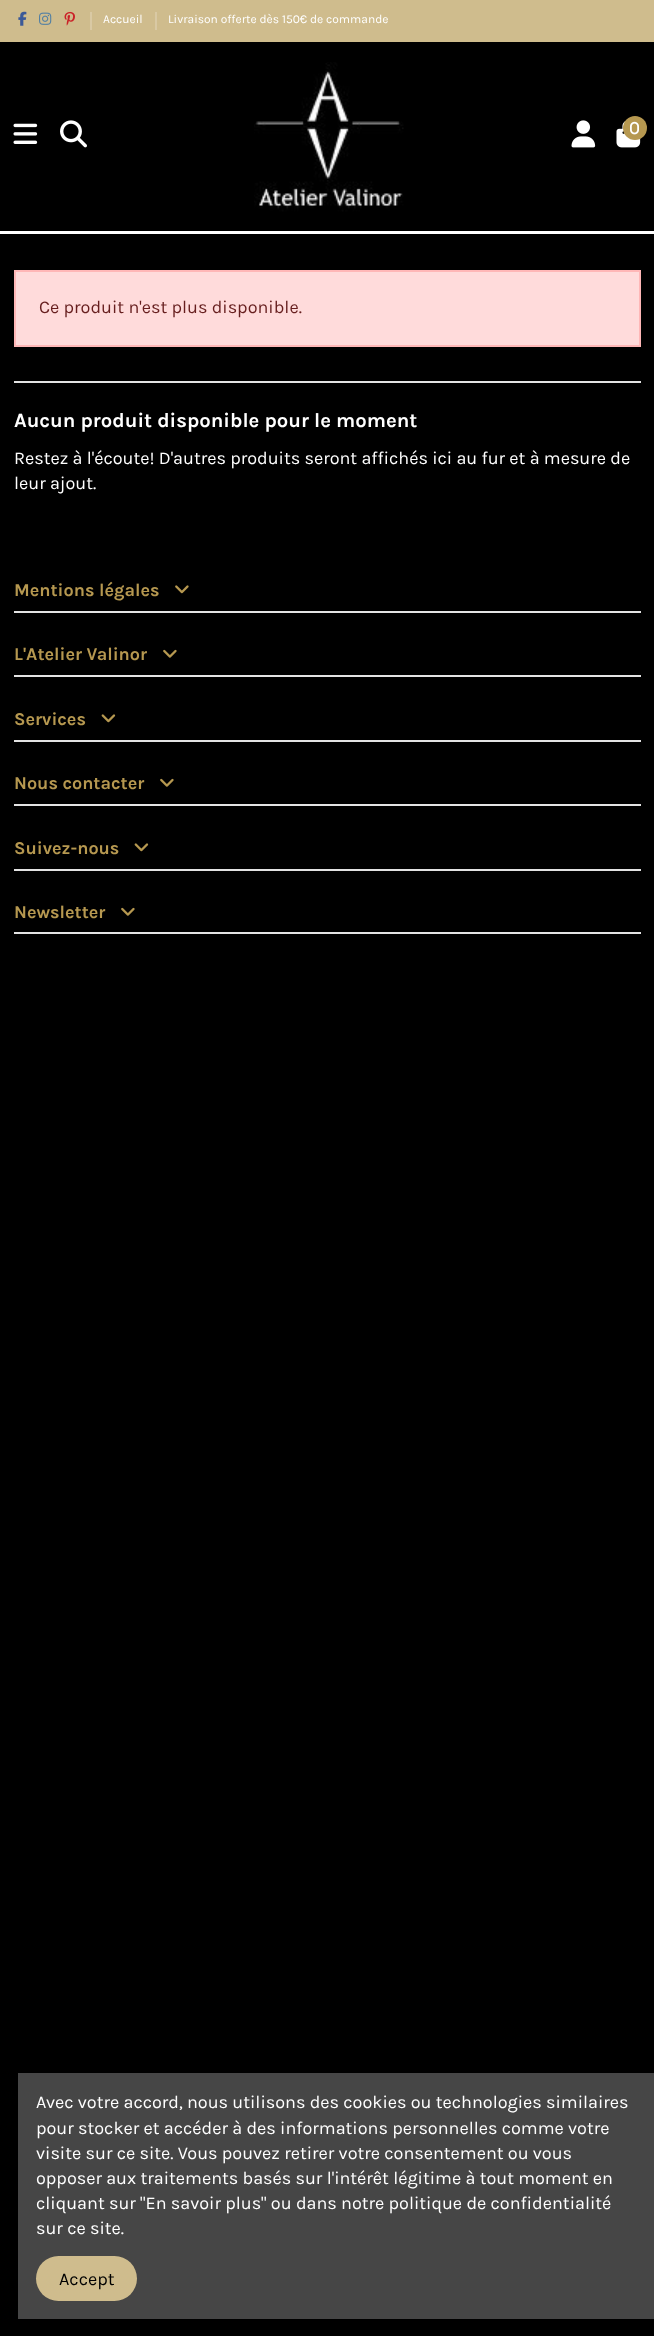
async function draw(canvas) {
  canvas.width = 654;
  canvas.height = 2336;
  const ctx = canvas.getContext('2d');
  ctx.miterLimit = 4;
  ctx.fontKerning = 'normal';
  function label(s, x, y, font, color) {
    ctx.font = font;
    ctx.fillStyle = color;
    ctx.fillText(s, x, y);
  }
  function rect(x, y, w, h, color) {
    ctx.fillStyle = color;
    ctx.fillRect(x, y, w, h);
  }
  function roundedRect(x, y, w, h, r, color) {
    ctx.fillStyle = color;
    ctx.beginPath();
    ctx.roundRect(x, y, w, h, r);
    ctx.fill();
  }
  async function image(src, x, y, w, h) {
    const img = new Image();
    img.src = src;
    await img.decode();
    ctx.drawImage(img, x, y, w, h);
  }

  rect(0, 0, 654, 2336, '#000');
  rect(0, 0, 654, 42, '#cfbc8d');
  await image('assets/img1.png', 18, 11, 9, 15);
  await image('assets/img2.png', 39, 12, 13, 13);
  await image('assets/img3.png', 64, 11, 11, 15);
  rect(90, 12, 2, 18, '#d9c9a4');
  label('Accueil', 103, 23, '12px Karla', '#fff');
  rect(155, 12, 2, 18, '#d9c9a4');
  label('Livraison offerte dès 150€ de commande', 168, 23, '12px Karla', '#fff');
  rect(0, 231, 654, 3, '#fff');
  await image('assets/img4.png', 13, 123, 25, 21);
  await image('assets/img5.png', 60, 120, 27, 28);
  await image('assets/img6.png', 254, 62, 150, 150);
  await image('assets/img7.png', 571, 120, 25, 28);
  await image('assets/img9.png', 616, 120, 25, 28);
  ctx.fillStyle = '#b69850';
  ctx.beginPath();
  ctx.arc(635, 128, 12, 0, 2 * Math.PI);
  ctx.fill();
  await image('assets/img8.png', 630, 121, 9, 14);
  ctx.fillStyle = '#ffdbdb';
  ctx.beginPath();
  ctx.rect(15, 271, 625, 75);
  ctx.fill();
  ctx.strokeStyle = '#ffb7b7';
  ctx.lineWidth = 2;
  ctx.stroke();
  label('Ce produit n\'est plus disponible.', 39, 313, '18px Karla', '#661e1e');
  rect(14, 381, 627, 2, '#e3e3e3');
  label('Aucun produit disponible pour le moment', 14, 427, 'bold 20.25px Karla', '#fff');
  label('Restez à l\'écoute! D\'autres produits seront affichés ici au fur et à mesure de', 14, 464, '18px Karla', '#fff');
  label('leur ajout.', 14, 489, '18px Karla', '#fff');
  rect(14, 611, 627, 2, '#e3e3e3');
  label('Mentions légales', 14, 596, 'bold 18px Karla', '#b69850');
  await image('assets/img10.png', 175, 585, 14, 9);
  rect(14, 675, 627, 2, '#e3e3e3');
  label('L\'Atelier Valinor', 14, 660, 'bold 18px Karla', '#b69850');
  await image('assets/img11.png', 163, 649, 14, 9);
  rect(14, 740, 627, 2, '#e3e3e3');
  label('Services', 14, 725, 'bold 18px Karla', '#b69850');
  await image('assets/img12.png', 101, 714, 15, 9);
  rect(14, 804, 627, 2, '#e3e3e3');
  label('Nous contacter', 14, 789, 'bold 18px Karla', '#b69850');
  await image('assets/img11.png', 160, 778, 14, 9);
  rect(14, 869, 627, 2, '#e3e3e3');
  label('Suivez-nous', 14, 854, 'bold 18px Karla', '#b69850');
  await image('assets/img12.png', 134, 843, 15, 9);
  rect(14, 932, 627, 2, '#e3e3e3');
  label('Newsletter', 14, 918, 'bold 18px Karla', '#b69850');
  await image('assets/img11.png', 121, 907, 14, 9);
  rect(18, 2073, 636, 246, '#464646');
  label('Avec votre accord, nous utilisons des cookies ou technologies similaires', 36, 2108, '18px Karla', '#fff');
  label('pour stocker et accéder à des informations personnelles comme votre', 36, 2134, '18px Karla', '#fff');
  label('visite sur ce site. Vous pouvez retirer votre consentement ou vous', 36, 2159, '18px Karla', '#fff');
  label('opposer aux traitements basés sur l\'intérêt légitime à tout moment en', 36, 2184, '18px Karla', '#fff');
  label('cliquant sur "En savoir plus" ou dans notre politique de confidentialité', 36, 2209, '18px Karla', '#fff');
  label('sur ce site.', 36, 2234, '18px Karla', '#fff');
  roundedRect(36, 2256, 101, 45, 22.5, '#cfbc8d');
  label('Accept', 59, 2285, '18px Karla', '#000');
}

draw(document.querySelector('canvas'));
